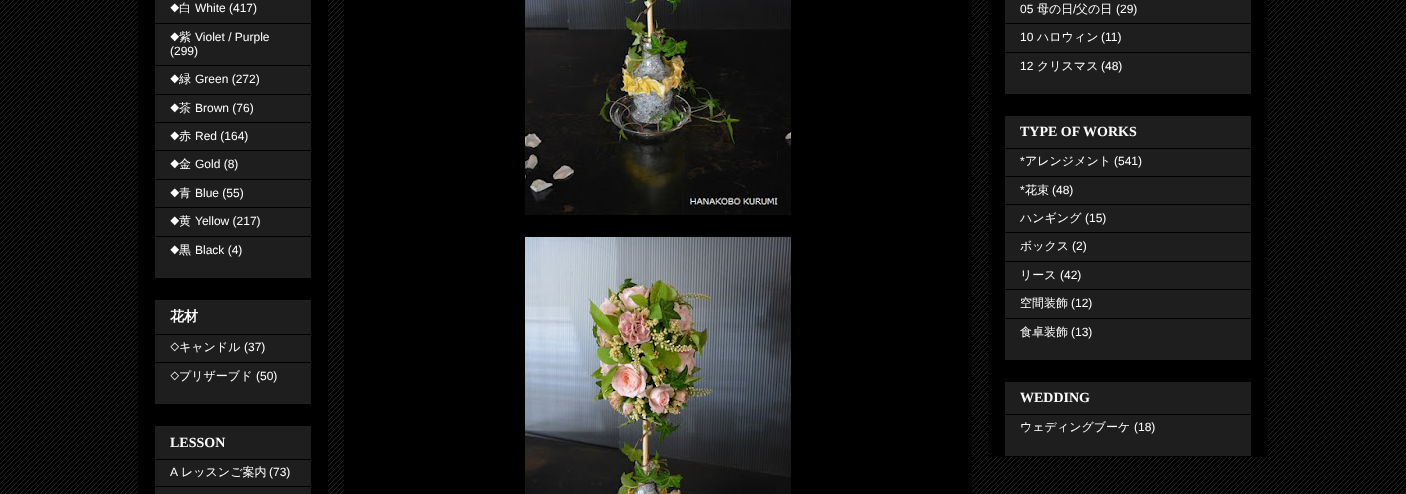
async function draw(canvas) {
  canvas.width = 1406;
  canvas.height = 494;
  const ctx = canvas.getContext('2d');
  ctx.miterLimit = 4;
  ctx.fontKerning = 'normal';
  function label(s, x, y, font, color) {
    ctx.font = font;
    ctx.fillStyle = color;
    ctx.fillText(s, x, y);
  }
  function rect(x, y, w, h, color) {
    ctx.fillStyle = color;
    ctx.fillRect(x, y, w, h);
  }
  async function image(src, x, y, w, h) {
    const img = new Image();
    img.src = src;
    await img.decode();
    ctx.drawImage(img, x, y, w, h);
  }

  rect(0, 0, 1406, 494, '#000');
  await image('assets/img1.png', 0, 0, 1406, 494);
  rect(138, 0, 190, 494, '#000');
  rect(155, 0, 156, 278, '#1e1e1e');
  label('◆', 170, 12, '12px FreeSans', '#fff');
  label('白', 179, 12, '500 12px WenQuanYi Zen Hei', '#fff');
  label('White (417)', 195, 12, '12px Liberation Sans', '#fff');
  rect(155, 23, 156, 1, '#000');
  label('◆', 170, 41, '12px FreeSans', '#fff');
  label('紫', 179, 41, '500 12px WenQuanYi Zen Hei', '#fff');
  label('Violet / Purple', 195, 41, '12px Liberation Sans', '#fff');
  label('(299)', 170, 55, '12px Liberation Sans', '#fff');
  rect(155, 65, 156, 1, '#000');
  label('◆', 170, 83, '12px FreeSans', '#fff');
  label('緑', 179, 83, '500 12px WenQuanYi Zen Hei', '#fff');
  label('Green (272)', 195, 83, '12px Liberation Sans', '#fff');
  rect(155, 94, 156, 1, '#000');
  label('◆', 170, 112, '12px FreeSans', '#fff');
  label('茶', 179, 112, '500 12px WenQuanYi Zen Hei', '#fff');
  label('Brown (76)', 195, 112, '12px Liberation Sans', '#fff');
  rect(155, 122, 156, 1, '#000');
  label('◆', 170, 140, '12px FreeSans', '#fff');
  label('赤', 179, 140, '500 12px WenQuanYi Zen Hei', '#fff');
  label('Red (164)', 195, 140, '12px Liberation Sans', '#fff');
  rect(155, 150, 156, 1, '#000');
  label('◆', 170, 168, '12px FreeSans', '#fff');
  label('金', 179, 168, '500 12px WenQuanYi Zen Hei', '#fff');
  label('Gold (8)', 195, 168, '12px Liberation Sans', '#fff');
  rect(155, 179, 156, 1, '#000');
  label('◆', 170, 197, '12px FreeSans', '#fff');
  label('青', 179, 197, '500 12px WenQuanYi Zen Hei', '#fff');
  label('Blue (55)', 195, 197, '12px Liberation Sans', '#fff');
  rect(155, 207, 156, 1, '#000');
  label('◆', 170, 225, '12px FreeSans', '#fff');
  label('黄', 179, 225, '500 12px WenQuanYi Zen Hei', '#fff');
  label('Yellow (217)', 195, 225, '12px Liberation Sans', '#fff');
  rect(155, 236, 156, 1, '#000');
  label('◆', 170, 254, '12px FreeSans', '#fff');
  label('黒', 179, 254, '500 12px WenQuanYi Zen Hei', '#fff');
  label('Black (4)', 195, 254, '12px Liberation Sans', '#fff');
  rect(155, 300, 156, 104, '#1e1e1e');
  label('花材', 170, 321, 'bold 14px WenQuanYi Zen Hei', '#fff');
  rect(155, 334, 156, 1, '#000');
  label('◇', 170, 351, '12px FreeSans', '#fff');
  label('キャンドル', 179, 351, '500 12px WenQuanYi Zen Hei', '#fff');
  label('(37)', 244, 351, '12px Liberation Sans', '#fff');
  rect(155, 362, 156, 1, '#000');
  label('◇', 170, 380, '12px FreeSans', '#fff');
  label('プリザーブド', 179, 380, '500 12px WenQuanYi Zen Hei', '#fff');
  label('(50)', 256, 380, '12px Liberation Sans', '#fff');
  rect(155, 426, 156, 68, '#1e1e1e');
  label('LESSON', 170, 447, 'bold 14px Liberation Serif', '#fff');
  rect(155, 459, 156, 1, '#000');
  label('A', 170, 476, '12px Liberation Sans', '#fff');
  label('レッスンご案内', 181, 476, '500 12px WenQuanYi Zen Hei', '#fff');
  label('(73)', 269, 476, '12px Liberation Sans', '#fff');
  rect(155, 486, 156, 1, '#000');
  rect(344, 0, 628, 494, '#000');
  await image('assets/img2.png', 525, 0, 266, 215);
  await image('assets/img3.png', 525, 237, 266, 257);
  rect(988, 0, 280, 457, '#000');
  rect(1005, 0, 246, 94, '#1e1e1e');
  label('05', 1020, 13, '12px Liberation Sans', '#fff');
  label('母の日', 1037, 13, '500 12px WenQuanYi Zen Hei', '#fff');
  label('/', 1073, 13, '12px Liberation Sans', '#fff');
  label('父の日', 1076, 13, '500 12px WenQuanYi Zen Hei', '#fff');
  label('(29)', 1116, 13, '12px Liberation Sans', '#fff');
  rect(1005, 23, 246, 1, '#000');
  label('10', 1020, 41, '12px Liberation Sans', '#fff');
  label('ハロウィン', 1037, 41, '500 12px WenQuanYi Zen Hei', '#fff');
  label('(11)', 1101, 41, '12px Liberation Sans', '#fff');
  rect(1005, 52, 246, 1, '#000');
  label('12', 1020, 70, '12px Liberation Sans', '#fff');
  label('クリスマス', 1037, 70, '500 12px WenQuanYi Zen Hei', '#fff');
  label('(48)', 1101, 70, '12px Liberation Sans', '#fff');
  rect(1005, 116, 246, 244, '#1e1e1e');
  label('TYPE OF WORKS', 1020, 136, 'bold 14px Liberation Serif', '#fff');
  rect(1005, 148, 246, 1, '#000');
  label('*', 1020, 165, '12px Liberation Sans', '#fff');
  label('アレンジメント', 1025, 165, '500 12px WenQuanYi Zen Hei', '#fff');
  label('(541)', 1114, 165, '12px Liberation Sans', '#fff');
  rect(1005, 176, 246, 1, '#000');
  label('*', 1020, 194, '12px Liberation Sans', '#fff');
  label('花束', 1025, 194, '500 12px WenQuanYi Zen Hei', '#fff');
  label('(48)', 1052, 194, '12px Liberation Sans', '#fff');
  rect(1005, 204, 246, 1, '#000');
  label('ハンギング', 1020, 222, '500 12px WenQuanYi Zen Hei', '#fff');
  label('(15)', 1085, 222, '12px Liberation Sans', '#fff');
  rect(1005, 232, 246, 1, '#000');
  label('ボックス', 1020, 250, '500 12px WenQuanYi Zen Hei', '#fff');
  label('(2)', 1072, 250, '12px Liberation Sans', '#fff');
  rect(1005, 261, 246, 1, '#000');
  label('リース', 1020, 279, '500 12px WenQuanYi Zen Hei', '#fff');
  label('(42)', 1060, 279, '12px Liberation Sans', '#fff');
  rect(1005, 289, 246, 1, '#000');
  label('空間装飾', 1020, 307, '500 12px WenQuanYi Zen Hei', '#fff');
  label('(12)', 1071, 307, '12px Liberation Sans', '#fff');
  rect(1005, 318, 246, 1, '#000');
  label('食卓装飾', 1020, 336, '500 12px WenQuanYi Zen Hei', '#fff');
  label('(13)', 1071, 336, '12px Liberation Sans', '#fff');
  rect(1005, 382, 246, 74, '#1e1e1e');
  label('WEDDING', 1020, 402, 'bold 14px Liberation Serif', '#fff');
  rect(1005, 414, 246, 1, '#000');
  label('ウェディングブーケ', 1020, 431, '500 12px WenQuanYi Zen Hei', '#fff');
  label('(18)', 1134, 431, '12px Liberation Sans', '#fff');
}

draw(document.querySelector('canvas'));
